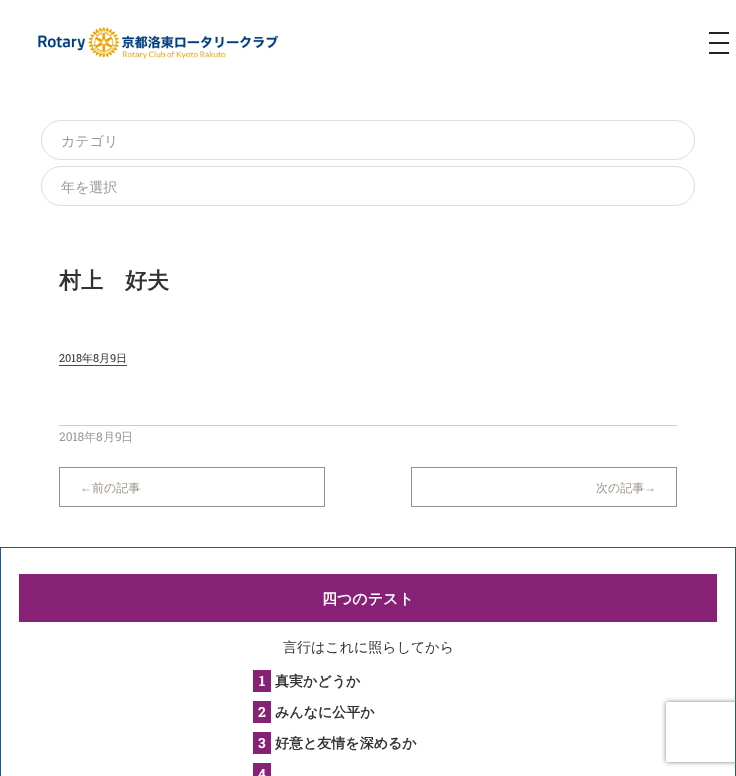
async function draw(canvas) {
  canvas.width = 736;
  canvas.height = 776;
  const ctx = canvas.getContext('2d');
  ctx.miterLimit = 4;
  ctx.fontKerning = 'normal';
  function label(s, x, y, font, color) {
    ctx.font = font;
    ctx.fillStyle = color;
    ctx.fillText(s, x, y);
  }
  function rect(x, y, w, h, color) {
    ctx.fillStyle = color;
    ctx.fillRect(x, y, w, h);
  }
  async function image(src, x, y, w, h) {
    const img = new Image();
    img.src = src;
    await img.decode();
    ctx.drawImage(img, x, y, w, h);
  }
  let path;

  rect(0, 0, 736, 776, '#fff');
  await image('assets/img1.png', 38, 27, 241, 32);
  rect(709, 42, 20, 2, '#222');
  rect(709, 32, 20, 2, '#222');
  rect(709, 52, 20, 2, '#222');
  ctx.beginPath();
  ctx.roundRect(41.5, 120.5, 653, 39, 19.5);
  ctx.strokeStyle = '#ddd';
  ctx.stroke();
  label('カテゴリ', 61, 146, '500 14px WenQuanYi Zen Hei', '#999');
  ctx.beginPath();
  ctx.roundRect(41.5, 166.5, 653, 39, 19.5);
  ctx.stroke();
  label('年を選択', 61, 192, '500 14px WenQuanYi Zen Hei', '#999');
  label('村上　好夫', 59, 288, 'bold 22px WenQuanYi Zen Hei', '#333');
  label('2018', 59, 362, '11px Roboto Slab', '#333');
  rect(59, 365, 68, 1, '#872175');
  label('年', 82, 362, '500 11px WenQuanYi Zen Hei', '#333');
  label('8', 93, 362, '11px Roboto Slab', '#333');
  label('月', 99, 362, '500 11px WenQuanYi Zen Hei', '#333');
  label('9', 110, 362, '11px Roboto Slab', '#333');
  label('日', 116, 362, '500 11px WenQuanYi Zen Hei', '#333');
  rect(59, 425, 618, 1, '#ccc');
  label('2018', 59, 441, '12px Roboto Slab', '#999');
  label('年', 84, 441, '500 12px WenQuanYi Zen Hei', '#999');
  label('8', 96, 441, '12px Roboto Slab', '#999');
  label('月', 103, 441, '500 12px WenQuanYi Zen Hei', '#999');
  label('9', 115, 441, '12px Roboto Slab', '#999');
  label('日', 121, 441, '500 12px WenQuanYi Zen Hei', '#999');
  ctx.strokeStyle = '#9b9188';
  ctx.strokeRect(59.5, 467.5, 265, 39);
  label('←', 80, 492, '12px Liberation Sans', '#9b9188');
  label('前の記事', 92, 492, '500 12px WenQuanYi Zen Hei', '#9b9188');
  ctx.strokeRect(411.5, 467.5, 265, 39);
  label('次の記事', 596, 492, '500 12px WenQuanYi Zen Hei', '#9b9188');
  label('→', 644, 492, '12px Liberation Sans', '#9b9188');
  rect(0, 547, 736, 1, '#1a58a2');
  rect(735, 547, 1, 229, '#1a58a2');
  rect(0, 547, 1, 229, '#1a58a2');
  rect(19, 574, 698, 48, '#872175');
  label('四つのテスト', 322, 604, 'bold 15px WenQuanYi Zen Hei', '#fff');
  label('言行はこれに照らしてから', 283, 652, '500 14px WenQuanYi Zen Hei', '#333');
  rect(253, 670, 18, 22, '#872175');
  label('1', 259, 686, 'bold 14px Roboto Slab', '#fff');
  label('真実かどうか', 275, 686, 'bold 14px WenQuanYi Zen Hei', '#333');
  rect(253, 701, 18, 22, '#872175');
  label('2', 258, 717, 'bold 14px Roboto Slab', '#fff');
  label('みんなに公平か', 275, 717, 'bold 14px WenQuanYi Zen Hei', '#333');
  rect(253, 732, 18, 22, '#872175');
  label('3', 258, 748, 'bold 14px Roboto Slab', '#fff');
  label('好意と友情を深めるか', 275, 748, 'bold 14px WenQuanYi Zen Hei', '#333');
  rect(253, 763, 18, 13, '#872175');
  label('4', 258, 779, 'bold 14px Roboto Slab', '#fff');
  ctx.save();
  path = new Path2D('M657 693H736V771H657ZM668 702H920C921 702 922 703 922 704V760C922 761 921 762 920 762H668C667 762 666 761 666 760V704C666 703 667 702 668 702Z');
  ctx.clip(path, 'evenodd');
  ctx.fillStyle = '#808080';
  ctx.filter = 'blur(2.5px)';
  ctx.beginPath();
  ctx.roundRect(666, 702, 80, 60, 2);
  ctx.fill();
  ctx.filter = 'none';
  ctx.restore();
}

draw(document.querySelector('canvas'));
